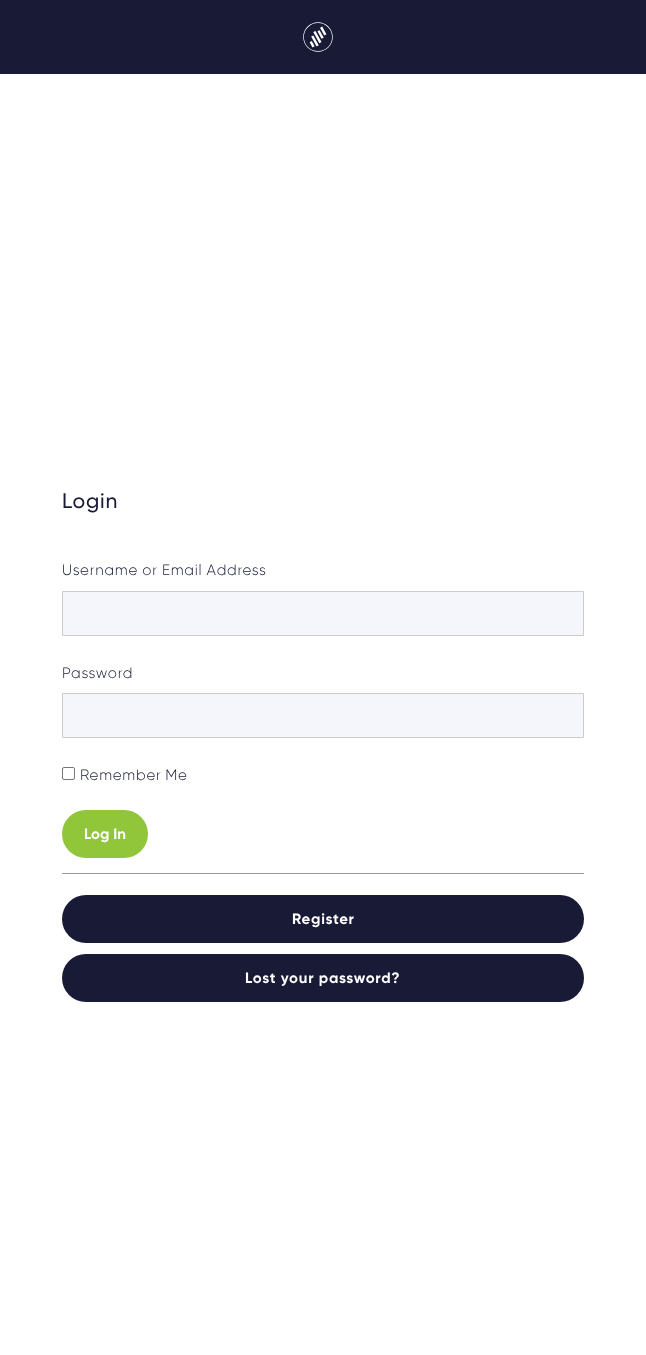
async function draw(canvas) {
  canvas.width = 646;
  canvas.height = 1355;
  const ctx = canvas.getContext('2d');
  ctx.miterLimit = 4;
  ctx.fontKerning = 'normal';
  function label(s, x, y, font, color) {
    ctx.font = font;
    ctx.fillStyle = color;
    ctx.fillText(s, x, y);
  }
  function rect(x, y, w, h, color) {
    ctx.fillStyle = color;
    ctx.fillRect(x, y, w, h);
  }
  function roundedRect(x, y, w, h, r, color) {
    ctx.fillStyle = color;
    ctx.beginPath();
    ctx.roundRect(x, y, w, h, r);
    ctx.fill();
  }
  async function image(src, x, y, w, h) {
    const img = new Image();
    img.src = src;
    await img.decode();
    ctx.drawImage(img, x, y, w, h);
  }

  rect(0, 0, 646, 1355, '#fff');
  rect(0, 0, 646, 74, '#181a36');
  await image('assets/img1.png', 303, 22, 30, 30);
  ctx.letterSpacing = '0.75px';
  label('Login', 62, 508, '21px "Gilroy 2"', '#181a36');
  ctx.wordSpacing = '-0.5px';
  label('Username or Email Address', 62, 575, '15px "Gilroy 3"', '#181a36');
  ctx.fillStyle = '#f5f6fb';
  ctx.beginPath();
  ctx.rect(62.5, 591.5, 521, 44);
  ctx.fill();
  ctx.strokeStyle = '#ccc';
  ctx.stroke();
  ctx.wordSpacing = '0px';
  label('Password', 62, 678, '15px "Gilroy 3"', '#181a36');
  ctx.fillStyle = '#f5f6fb';
  ctx.beginPath();
  ctx.rect(62.5, 693.5, 521, 44);
  ctx.fill();
  ctx.stroke();
  ctx.beginPath();
  ctx.roundRect(62.5, 767.5, 12, 12, 1.5);
  ctx.strokeStyle = '#767676';
  ctx.stroke();
  ctx.wordSpacing = '-1px';
  label('Remember Me', 80, 780, '15px "Gilroy 3"', '#181a36');
  roundedRect(62, 810, 86, 48, 24, '#91c53a');
  ctx.letterSpacing = '0px';
  ctx.wordSpacing = '0px';
  label('Log In', 84, 839, '15px Gilroy', '#fff');
  rect(62, 873, 522, 1, '#999');
  roundedRect(62, 895, 522, 48, 24, '#181a36');
  ctx.letterSpacing = '0.75px';
  label('Register', 292, 924, '15px Gilroy', '#fff');
  roundedRect(62, 954, 522, 48, 24, '#181a36');
  label('Lost your password?', 245, 983, '15px Gilroy', '#fff');
}

draw(document.querySelector('canvas'));
